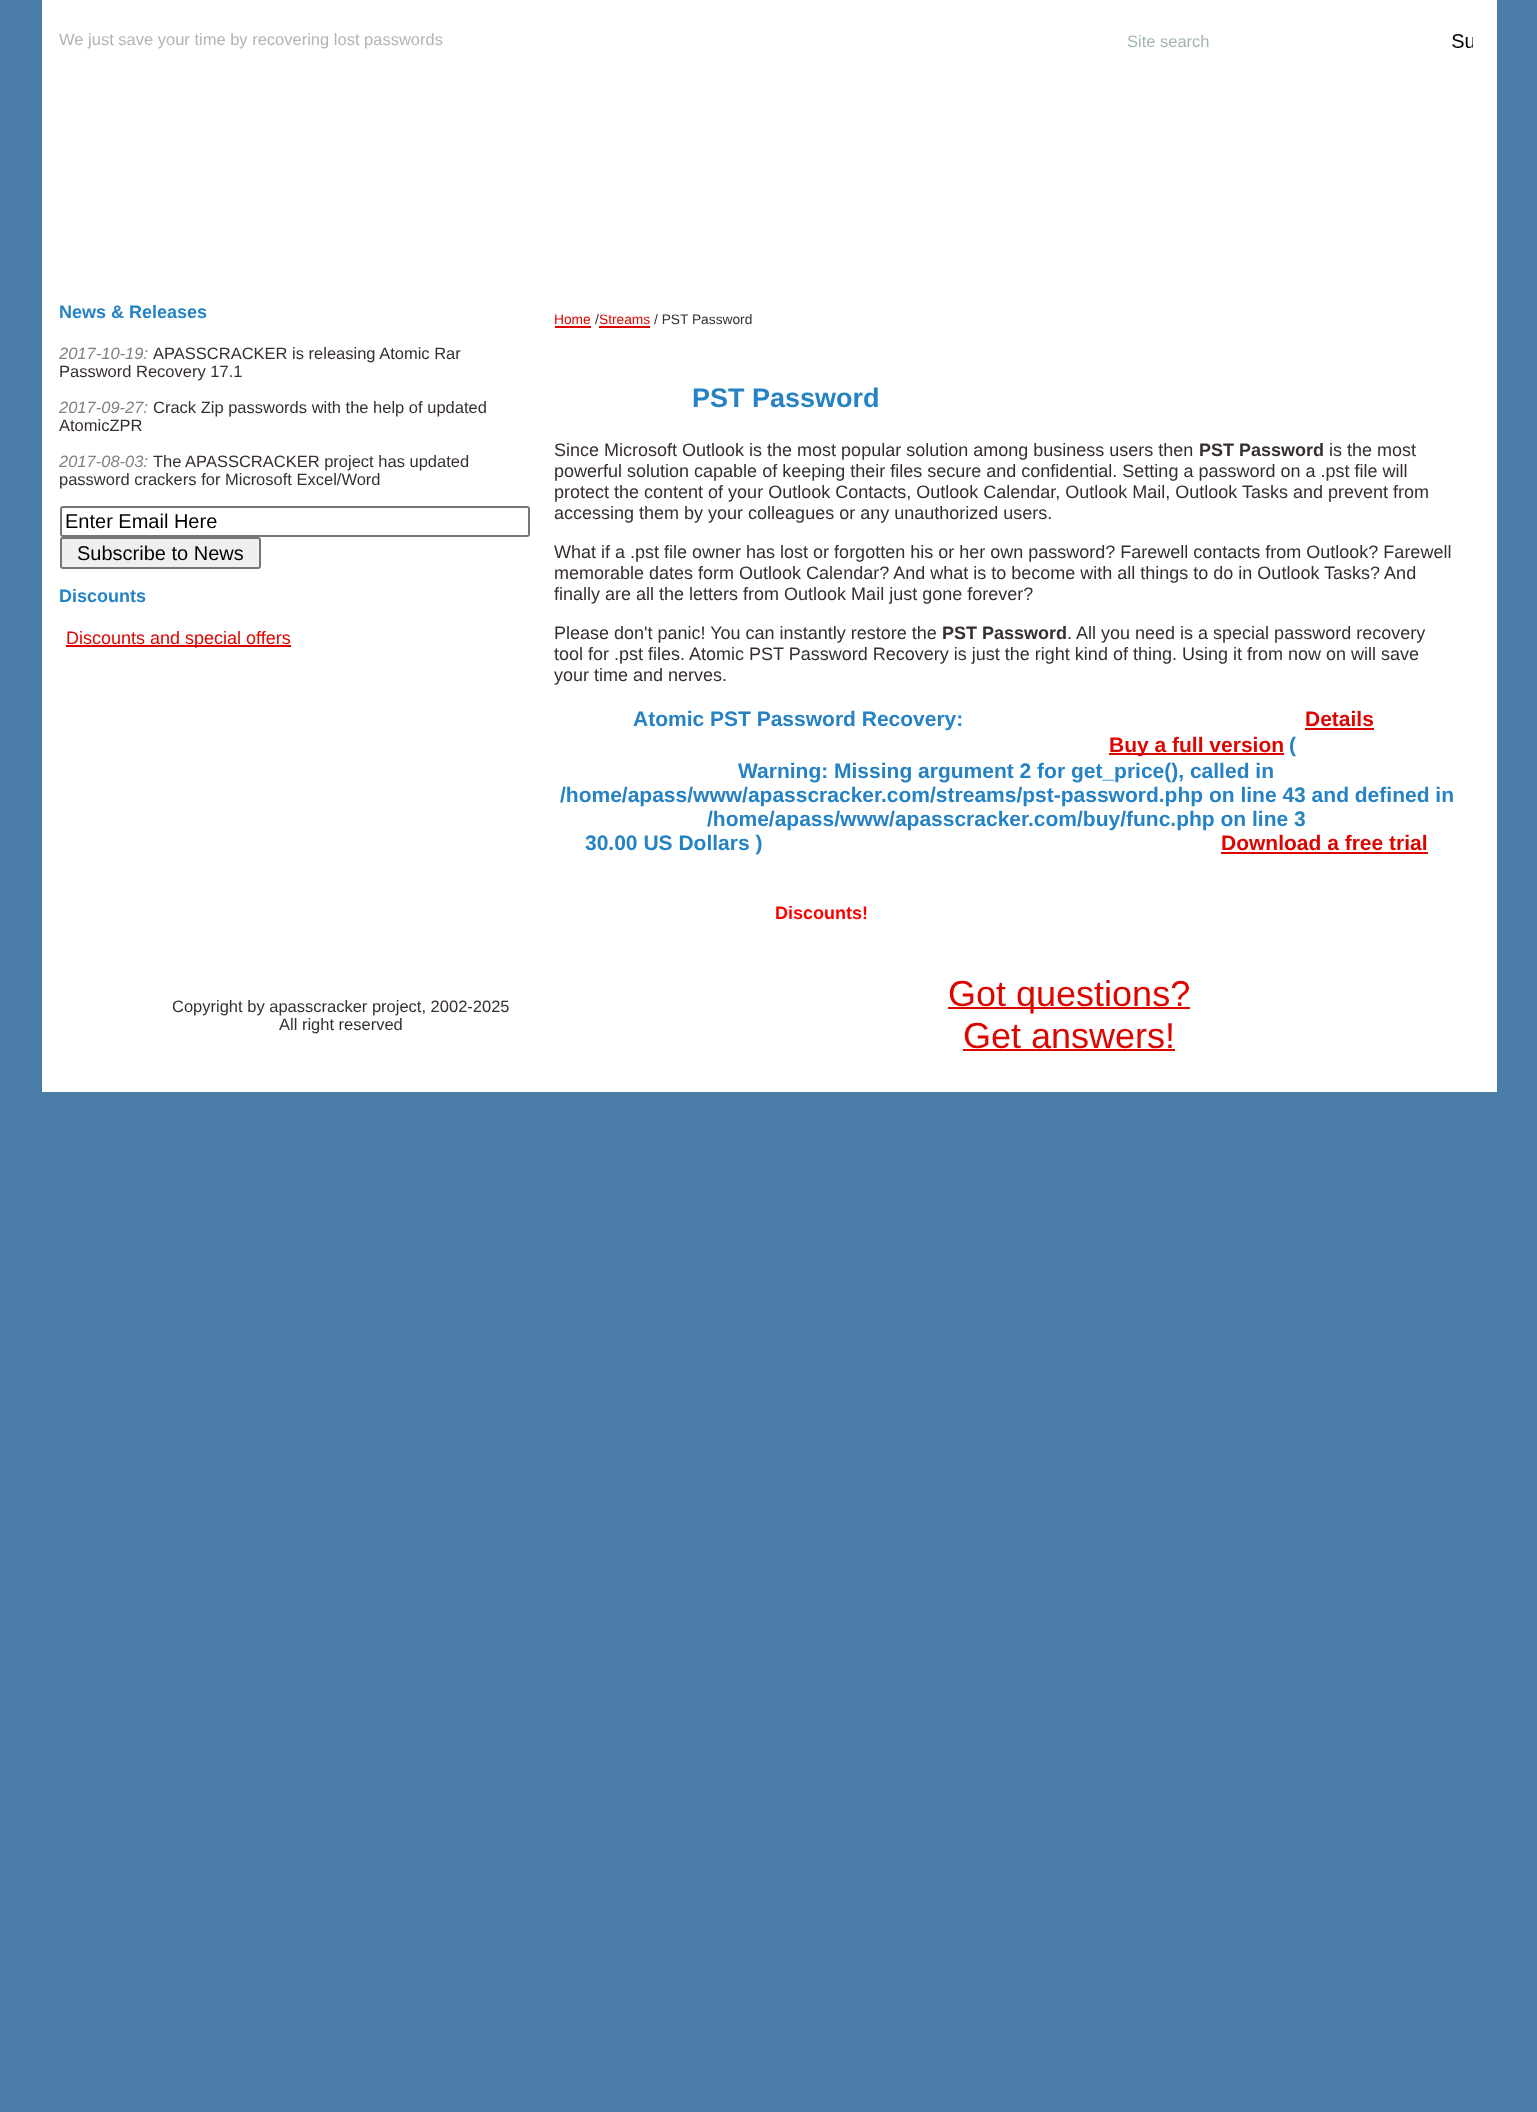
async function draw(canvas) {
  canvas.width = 1537;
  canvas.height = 2112;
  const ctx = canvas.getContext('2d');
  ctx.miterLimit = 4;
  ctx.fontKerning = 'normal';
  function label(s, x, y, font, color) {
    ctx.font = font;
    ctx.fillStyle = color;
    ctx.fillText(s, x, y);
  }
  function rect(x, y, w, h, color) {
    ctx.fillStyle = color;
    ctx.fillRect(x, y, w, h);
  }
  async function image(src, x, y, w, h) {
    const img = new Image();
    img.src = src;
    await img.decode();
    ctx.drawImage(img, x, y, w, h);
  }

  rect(0, 0, 1537, 2112, '#497ca7');
  rect(42, 0, 1455, 1092, '#fff');
  label('We just save your time by recovering lost passwords', 59, 45, '16.5px Liberation Sans', '#b5b2b2');
  label('Site search', 1127, 47, '16.5px Liberation Sans', '#a2b7ac');
  await image('assets/img1.png', 1452, 34, 21, 14);
  label('News & Releases', 59, 318, 'bold 18px Liberation Sans', '#2582c3');
  label('2017-10-19:', 59, 359, 'italic 16.5px Liberation Sans', '#808080');
  label('APASSCRACKER is releasing Atomic Rar', 153, 359, '16.5px Liberation Sans', '#362f2d');
  label('Password Recovery 17.1', 59, 377, '16.5px Liberation Sans', '#362f2d');
  label('2017-09-27:', 59, 413, 'italic 16.5px Liberation Sans', '#808080');
  label('Crack Zip passwords with the help of updated', 153, 413, '16.5px Liberation Sans', '#362f2d');
  label('AtomicZPR', 59, 431, '16.5px Liberation Sans', '#362f2d');
  label('2017-08-03:', 59, 467, 'italic 16.5px Liberation Sans', '#808080');
  label('The APASSCRACKER project has updated', 153, 467, '16.5px Liberation Sans', '#362f2d');
  label('password crackers for Microsoft Excel/Word', 59, 485, '16.5px Liberation Sans', '#362f2d');
  ctx.beginPath();
  ctx.roundRect(61, 507, 468, 29, 2);
  ctx.strokeStyle = '#767676';
  ctx.lineWidth = 2;
  ctx.stroke();
  label('Enter Email Here', 65, 528, '20px Liberation Sans', '#000');
  ctx.fillStyle = '#efefef';
  ctx.beginPath();
  ctx.roundRect(61, 538, 199, 30, 2);
  ctx.fill();
  ctx.stroke();
  label('Subscribe to News', 77, 560, '20px Liberation Sans', '#000');
  label('Discounts', 59, 602, 'bold 18px Liberation Sans', '#2582c3');
  rect(66, 645, 225, 2, '#dc0500');
  label('Discounts and special offers', 66, 644, '18px Liberation Sans', '#dc0500');
  label('Home', 554, 324, '13.75px Liberation Sans', '#dc0500');
  rect(555, 326, 36, 2, '#dc0500');
  label('/', 595, 324, '13.75px Liberation Sans', '#362f2d');
  rect(599, 326, 51, 2, '#dc0500');
  label('Streams', 599, 324, '13.75px Liberation Sans', '#dc0500');
  label('/ PST Password', 654, 324, '13.75px Liberation Sans', '#362f2d');
  label('PST Password', 692, 407, 'bold 27px Liberation Sans', '#2582c3');
  label('Since Microsoft Outlook is the most popular solution among business users then', 554, 456, '18px Liberation Sans', '#362f2d');
  label('PST Password', 1199, 456, 'bold 18px Liberation Sans', '#362f2d');
  label('is the most', 1329, 456, '18px Liberation Sans', '#362f2d');
  label('powerful solution capable of keeping their files secure and confidential. Setting a password on a .pst file will', 554, 477, '18px Liberation Sans', '#362f2d');
  label('protect the content of your Outlook Contacts, Outlook Calendar, Outlook Mail, Outlook Tasks and prevent from', 554, 498, '18px Liberation Sans', '#362f2d');
  label('accessing them by your colleagues or any unauthorized users.', 554, 519, '18px Liberation Sans', '#362f2d');
  label('What if a .pst file owner has lost or forgotten his or her own password? Farewell contacts from Outlook? Farewell', 554, 558, '18px Liberation Sans', '#362f2d');
  label('memorable dates form Outlook Calendar? And what is to become with all things to do in Outlook Tasks? And', 554, 579, '18px Liberation Sans', '#362f2d');
  label('finally are all the letters from Outlook Mail just gone forever?', 554, 600, '18px Liberation Sans', '#362f2d');
  label('Please don\'t panic! You can instantly restore the', 554, 639, '18px Liberation Sans', '#362f2d');
  label('PST Password', 942, 639, 'bold 18px Liberation Sans', '#362f2d');
  label('. All you need is a special password recovery', 1067, 639, '18px Liberation Sans', '#362f2d');
  label('tool for .pst files. Atomic PST Password Recovery is just the right kind of thing. Using it from now on will save', 554, 660, '18px Liberation Sans', '#362f2d');
  label('your time and nerves.', 554, 681, '18px Liberation Sans', '#362f2d');
  label('Atomic PST Password Recovery:', 633, 726, 'bold 21px Liberation Sans', '#2582c3');
  label('Details', 1305, 726, 'bold 21px Liberation Sans', '#dc0500');
  rect(1305, 728, 69, 2, '#dc0500');
  rect(1109, 753, 175, 2, '#dc0500');
  label('Buy a full version', 1109, 752, 'bold 21px Liberation Sans', '#dc0500');
  label('(', 1289, 752, 'bold 21px Liberation Sans', '#2582c3');
  label('Warning: Missing argument 2 for get_price(), called in', 738, 778, 'bold 21px Liberation Sans', '#2582c3');
  label('/home/apass/www/apasscracker.com/streams/pst-password.php on line 43 and defined in', 560, 802, 'bold 21px Liberation Sans', '#2582c3');
  label('/home/apass/www/apasscracker.com/buy/func.php on line 3', 707, 826, 'bold 21px Liberation Sans', '#2582c3');
  label('30.00 US Dollars )', 585, 850, 'bold 21px Liberation Sans', '#2582c3');
  label('Download a free trial', 1221, 850, 'bold 21px Liberation Sans', '#dc0500');
  rect(1221, 852, 207, 2, '#dc0500');
  label('Discounts!', 775, 919, 'bold 18px Liberation Sans', '#f00');
  label('Copyright by apasscracker project, 2002-2025', 172, 1012, '16.5px Liberation Sans', '#362f2d');
  label('All right reserved', 279, 1030, '16.5px Liberation Sans', '#362f2d');
  rect(948, 1007, 242, 2, '#dc0500');
  label('Got questions?', 948, 1006, '36px Liberation Sans', '#dc0500');
  label('Get answers!', 963, 1048, '36px Liberation Sans', '#dc0500');
  rect(963, 1049, 212, 2, '#dc0500');
}

draw(document.querySelector('canvas'));
